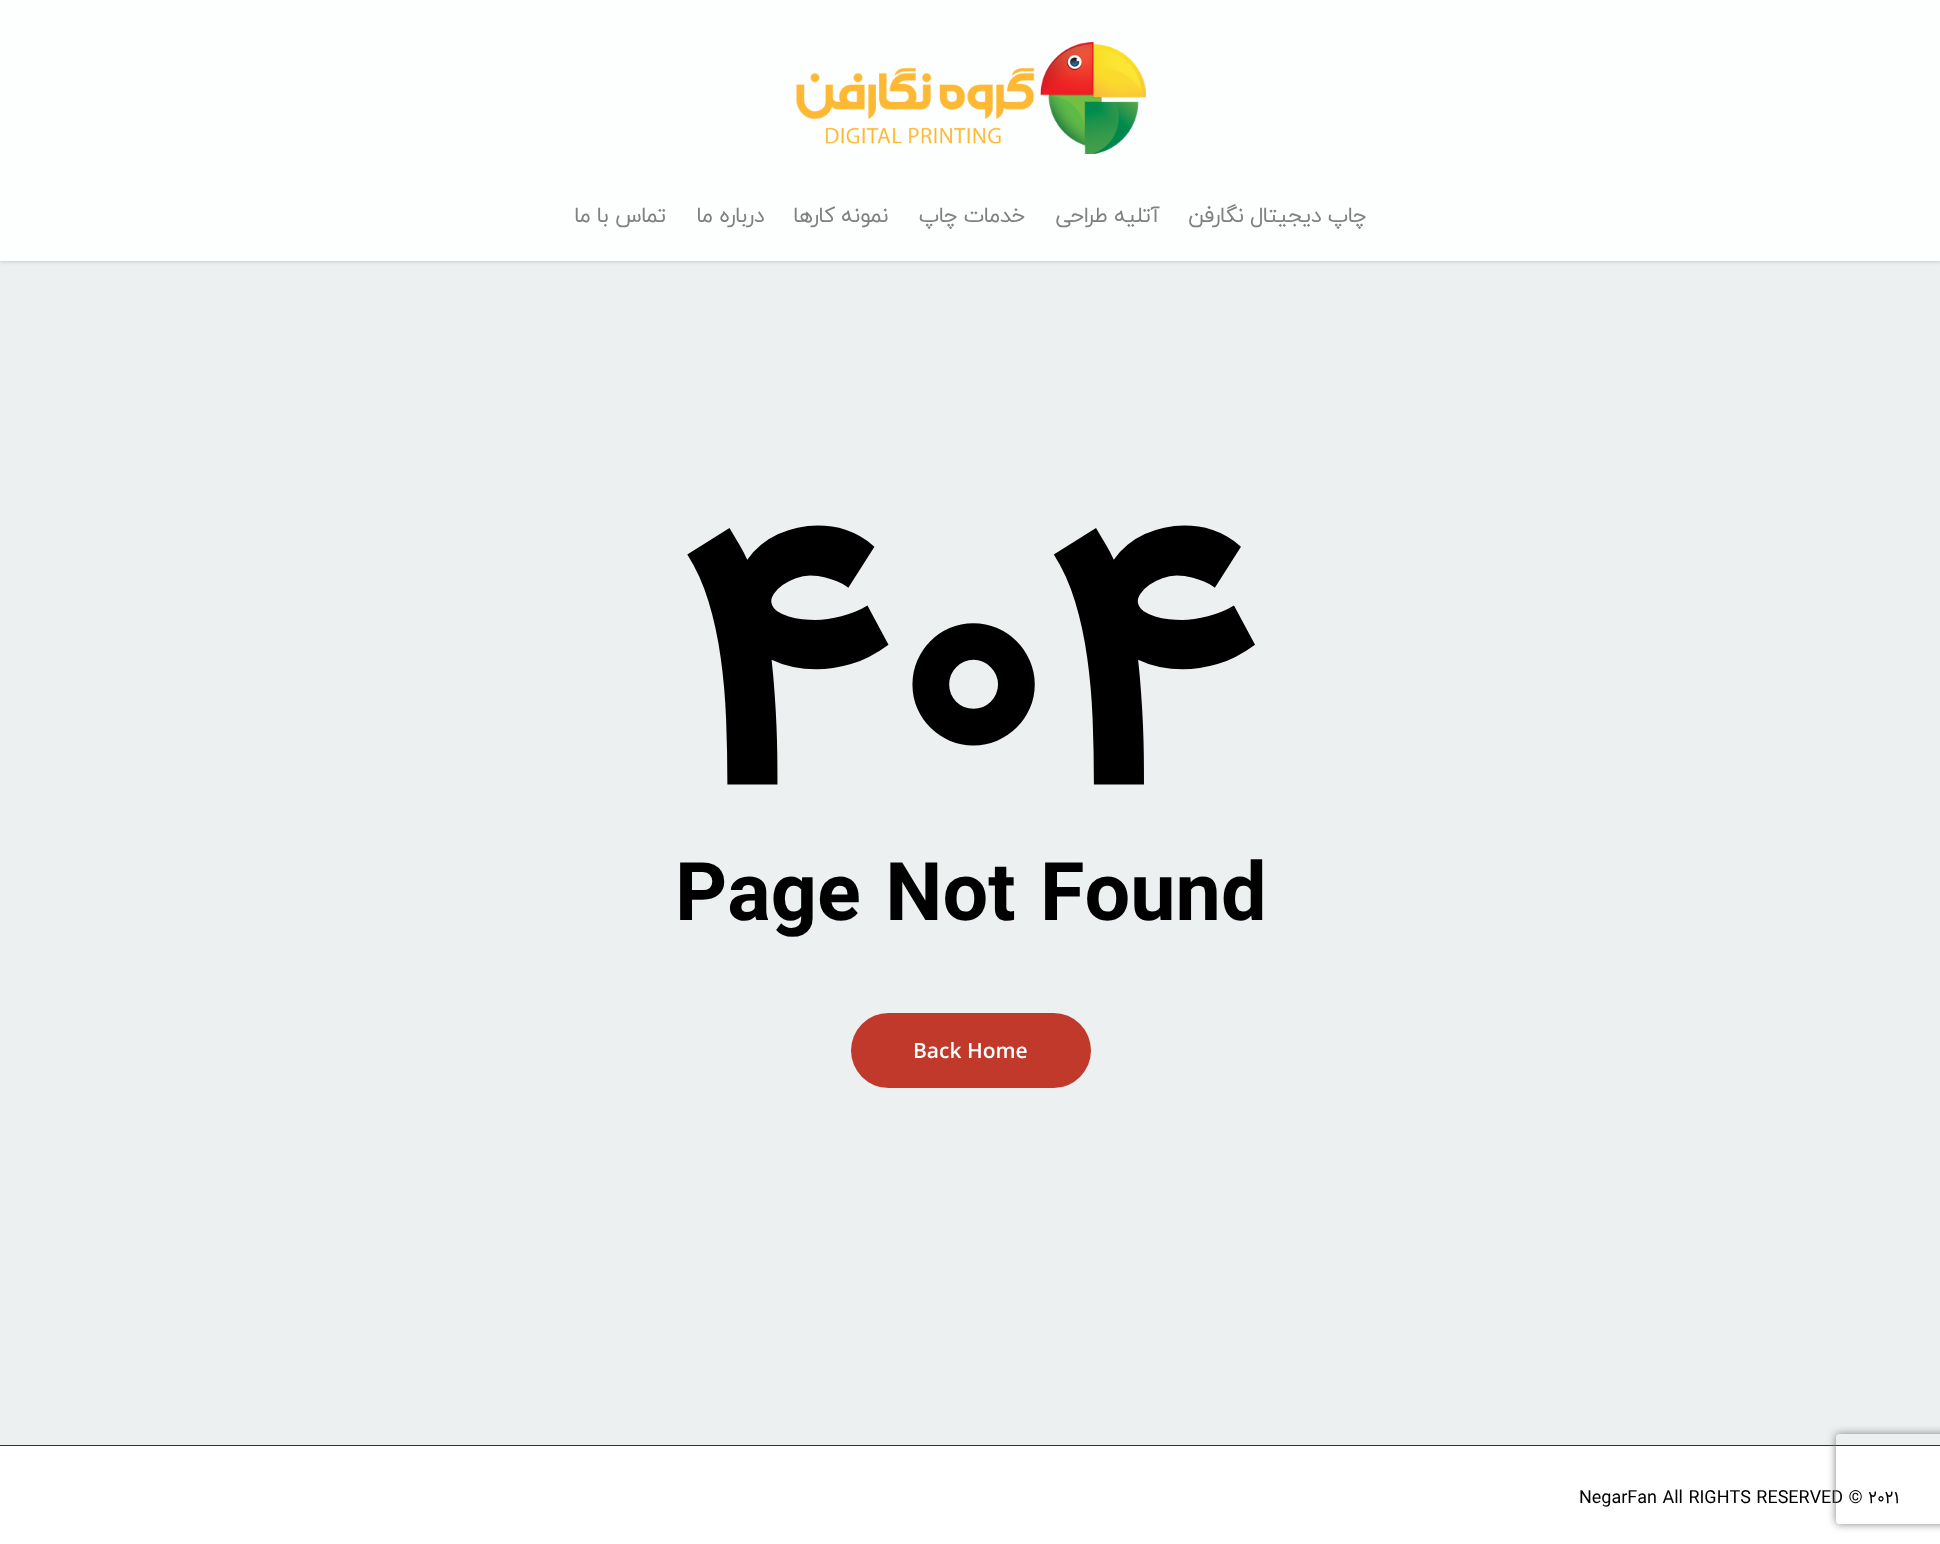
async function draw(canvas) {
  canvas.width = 1940;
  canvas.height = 1544;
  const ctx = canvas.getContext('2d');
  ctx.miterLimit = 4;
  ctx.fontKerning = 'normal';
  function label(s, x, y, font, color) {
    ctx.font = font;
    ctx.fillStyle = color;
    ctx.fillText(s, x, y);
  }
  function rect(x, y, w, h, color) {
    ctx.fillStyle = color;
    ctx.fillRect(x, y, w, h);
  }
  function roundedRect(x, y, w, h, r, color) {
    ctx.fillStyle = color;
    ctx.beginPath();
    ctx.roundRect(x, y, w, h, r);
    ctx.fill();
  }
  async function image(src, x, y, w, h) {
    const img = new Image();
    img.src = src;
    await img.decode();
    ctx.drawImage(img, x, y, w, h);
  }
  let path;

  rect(0, 0, 1940, 1544, '#ecf0f1');
  ctx.fillStyle = '#00000038';
  ctx.filter = 'blur(2px)';
  ctx.beginPath();
  ctx.rect(0, 0, 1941, 261);
  ctx.fill();
  ctx.filter = 'none';
  rect(0, 0, 1940, 261, '#fdfefe');
  await image('assets/img1.png', 796, 42, 350, 112);
  ctx.direction = 'rtl';
  label('چاپ دیجیتال نگارفن', 1366, 222, 'bold 21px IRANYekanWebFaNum', '#808080');
  label('آتلیه طراحی', 1159, 222, 'bold 21px IRANYekanWebFaNum', '#808080');
  label('خدمات چاپ', 1025, 222, 'bold 21px IRANYekanWebFaNum', '#808080');
  label('نمونه کارها', 888, 222, 'bold 21px IRANYekanWebFaNum', '#808080');
  label('درباره ما', 764, 222, 'bold 21px IRANYekanWebFaNum', '#808080');
  label('تماس با ما', 666, 222, 'bold 21px IRANYekanWebFaNum', '#808080');
  ctx.direction = 'ltr';
  label('۴۰۴', 685, 773, 'bold 375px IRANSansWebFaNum', '#000');
  label('Page Not Found', 675, 920, 'bold 81px IRANSansWebFaNum', '#000');
  roundedRect(851, 1013, 240, 75, 37.5, '#c0392b');
  label('Back Home', 913, 1058, '600 21px Open Sans', '#fff');
  rect(0, 1445, 1940, 1, '#313233');
  rect(0, 1446, 1940, 98, '#fff');
  label('NegarFan All RIGHTS RESERVED © 2021', 1579, 1503, '18px IRANSansWebFaNum', '#000');
  ctx.save();
  path = new Path2D('M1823 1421H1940V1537H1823ZM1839 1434H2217C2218.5 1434 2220 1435.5 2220 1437V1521C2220 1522.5 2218.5 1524 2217 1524H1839C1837.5 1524 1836 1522.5 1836 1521V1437C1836 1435.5 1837.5 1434 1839 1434Z');
  ctx.clip(path, 'evenodd');
  ctx.fillStyle = '#808080';
  ctx.filter = 'blur(4px)';
  ctx.beginPath();
  ctx.roundRect(1836, 1434, 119, 90, 3);
  ctx.fill();
  ctx.filter = 'none';
  ctx.restore();
}

draw(document.querySelector('canvas'));
